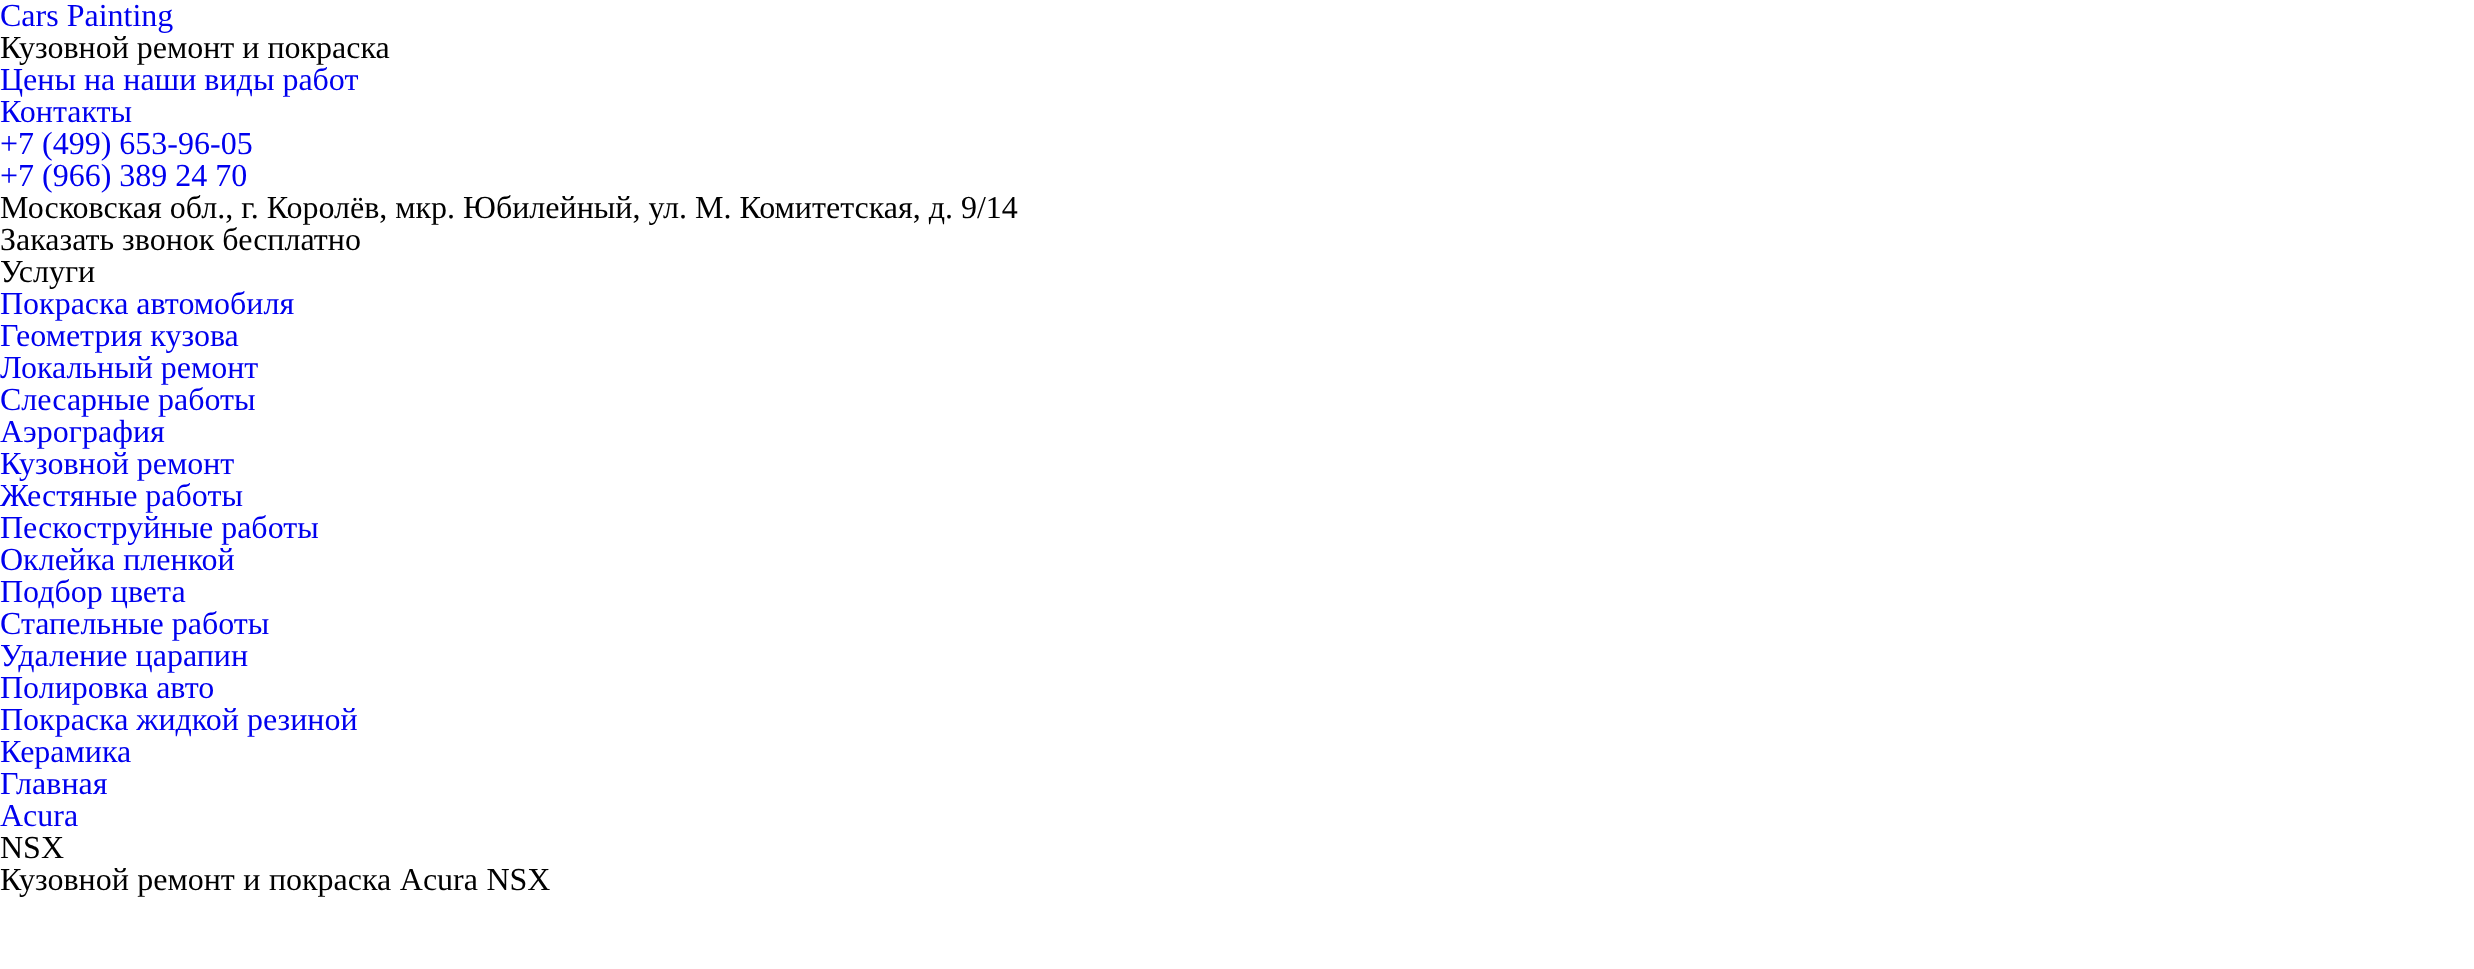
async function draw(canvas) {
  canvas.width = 2474;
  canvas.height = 969;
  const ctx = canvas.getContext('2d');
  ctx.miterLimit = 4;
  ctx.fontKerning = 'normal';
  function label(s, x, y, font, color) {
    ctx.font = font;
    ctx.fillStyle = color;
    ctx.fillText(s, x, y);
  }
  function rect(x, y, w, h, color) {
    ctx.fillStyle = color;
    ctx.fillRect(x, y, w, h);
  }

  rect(0, 0, 2474, 969, '#fff');
  label('Cars Painting', 0, 26, '32px Liberation Serif', '#00e');
  label('Кузовной ремонт и покраска', 0, 58, '32px Liberation Serif', '#000');
  label('Цены на наши виды работ', 0, 90, '32px Liberation Serif', '#00e');
  label('Контакты', 0, 122, '32px Liberation Serif', '#00e');
  label('+7 (499) 653-96-05', 0, 154, '32px Liberation Serif', '#00e');
  label('+7 (966) 389 24 70', 0, 186, '32px Liberation Serif', '#00e');
  label('Московская обл., г. Королёв, мкр. Юбилейный, ул. М. Комитетская, д. 9/14', 0, 218, '32px Liberation Serif', '#000');
  label('Заказать звонок бесплатно', 0, 250, '32px Liberation Serif', '#000');
  label('Услуги', 0, 282, '32px Liberation Serif', '#000');
  label('Покраска автомобиля', 0, 314, '32px Liberation Serif', '#00e');
  label('Геометрия кузова', 0, 346, '32px Liberation Serif', '#00e');
  label('Локальный ремонт', 0, 378, '32px Liberation Serif', '#00e');
  label('Слесарные работы', 0, 410, '32px Liberation Serif', '#00e');
  label('Аэрография', 0, 442, '32px Liberation Serif', '#00e');
  label('Кузовной ремонт', 0, 474, '32px Liberation Serif', '#00e');
  label('Жестяные работы', 0, 506, '32px Liberation Serif', '#00e');
  label('Пескоструйные работы', 0, 538, '32px Liberation Serif', '#00e');
  label('Оклейка пленкой', 0, 570, '32px Liberation Serif', '#00e');
  label('Подбор цвета', 0, 602, '32px Liberation Serif', '#00e');
  label('Стапельные работы', 0, 634, '32px Liberation Serif', '#00e');
  label('Удаление царапин', 0, 666, '32px Liberation Serif', '#00e');
  label('Полировка авто', 0, 698, '32px Liberation Serif', '#00e');
  label('Покраска жидкой резиной', 0, 730, '32px Liberation Serif', '#00e');
  label('Керамика', 0, 762, '32px Liberation Serif', '#00e');
  label('Главная', 0, 794, '32px Liberation Serif', '#00e');
  label('Acura', 0, 826, '32px Liberation Serif', '#00e');
  label('NSX', 0, 858, '32px Liberation Serif', '#000');
  ctx.wordSpacing = '0.5px';
  label('Кузовной ремонт и покраска Acura NSX', 0, 890, '32px Liberation Serif', '#000');
}

draw(document.querySelector('canvas'));
